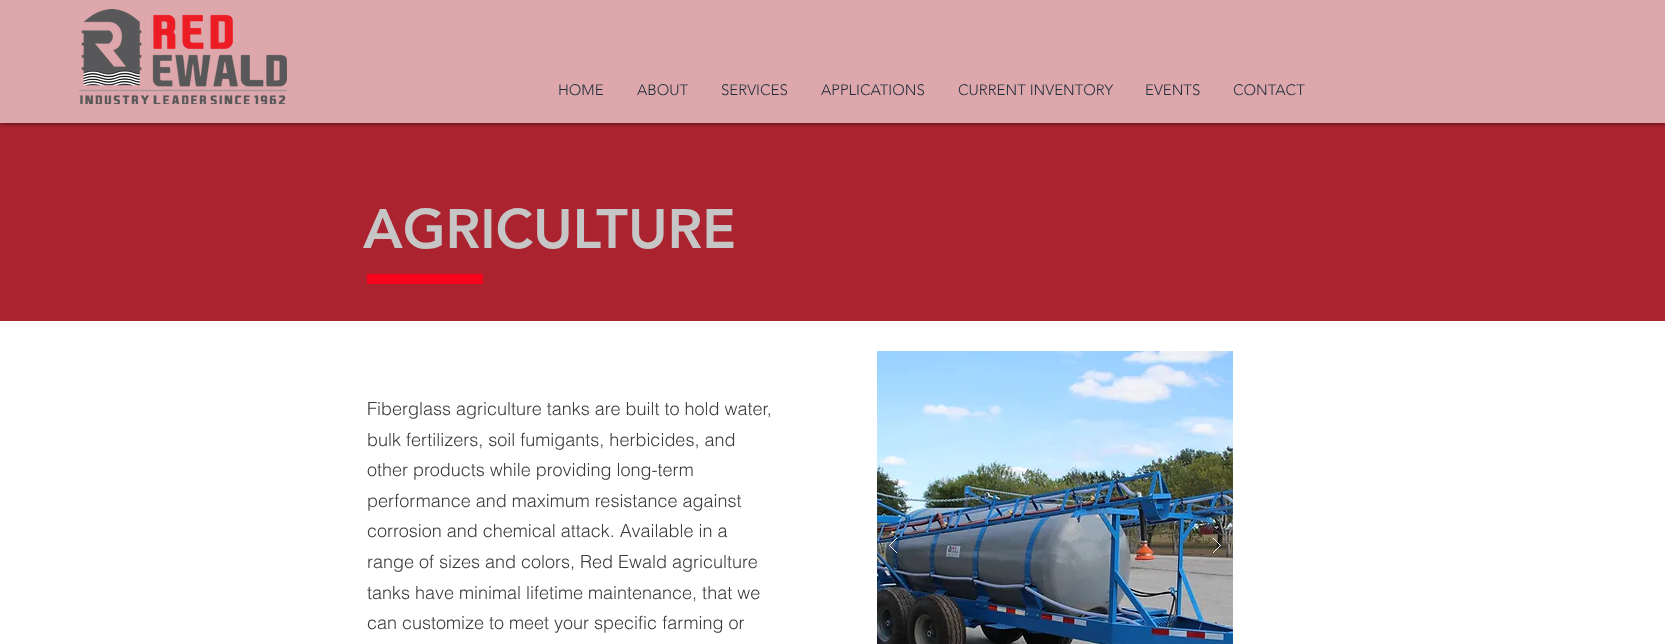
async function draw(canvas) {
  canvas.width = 1665;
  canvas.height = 644;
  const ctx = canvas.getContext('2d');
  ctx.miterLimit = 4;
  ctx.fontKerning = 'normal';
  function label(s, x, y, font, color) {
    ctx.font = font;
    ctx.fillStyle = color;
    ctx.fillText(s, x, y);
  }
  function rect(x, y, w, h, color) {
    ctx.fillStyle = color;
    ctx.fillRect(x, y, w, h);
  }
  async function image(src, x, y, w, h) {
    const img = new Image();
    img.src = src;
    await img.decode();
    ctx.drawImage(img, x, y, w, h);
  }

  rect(0, 0, 1665, 644, '#aa232f');
  ctx.fillStyle = '#000000b3';
  ctx.filter = 'blur(2.5px)';
  ctx.beginPath();
  ctx.rect(0, 0, 1665, 123);
  ctx.fill();
  ctx.filter = 'none';
  rect(0, 0, 1665, 123, '#dda7ac');
  await image('assets/img1.png', 79, 9, 208, 95);
  label('HOME', 558, 95, '300 15px "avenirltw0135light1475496"', '#1e2d3b');
  label('ABOUT', 637, 95, '300 15px "avenirltw0135light1475496"', '#1e2d3b');
  label('SERVICES', 721, 95, '300 15px "avenirltw0135light1475496"', '#1e2d3b');
  label('APPLICATIONS', 821, 95, '300 15px "avenirltw0135light1475496"', '#1e2d3b');
  label('CURRENT INVENTORY', 958, 95, '300 15px "avenirltw0135light1475496"', '#1e2d3b');
  label('EVENTS', 1145, 95, '300 15px "avenirltw0135light1475496"', '#1e2d3b');
  label('CONTACT', 1233, 95, '300 15px "avenirltw0135light1475496"', '#1e2d3b');
  label('AGRICULTURE', 363, 248, '900 55px "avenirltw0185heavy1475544"', '#c6c6c6');
  rect(367, 274, 116, 10, '#f60419');
  rect(0, 321, 1665, 323, '#fff');
  label('Fiberglass agriculture tanks are built to hold water,', 367, 415, '300 18px helvetica', '#3b3a3a');
  label('bulk fertilizers, soil fumigants, herbicides, and', 367, 446, '300 18px helvetica', '#3b3a3a');
  label('other products while providing long-term', 367, 476, '300 18px helvetica', '#3b3a3a');
  label('performance and maximum resistance against', 367, 507, '300 18px helvetica', '#3b3a3a');
  label('corrosion and chemical attack. Available in a', 367, 537, '300 18px helvetica', '#3b3a3a');
  label('range of sizes and colors, Red Ewald agriculture', 367, 568, '300 18px helvetica', '#3b3a3a');
  label('tanks have minimal lifetime maintenance, that we', 367, 599, '300 18px helvetica', '#3b3a3a');
  label('can customize to meet your specific farming or', 367, 629, '300 18px helvetica', '#3b3a3a');
  await image('assets/img2.png', 877, 351, 356, 293);
  await image('assets/img3.png', 889, 538, 8, 16);
  await image('assets/img4.png', 1213, 538, 8, 16);
}

draw(document.querySelector('canvas'));
